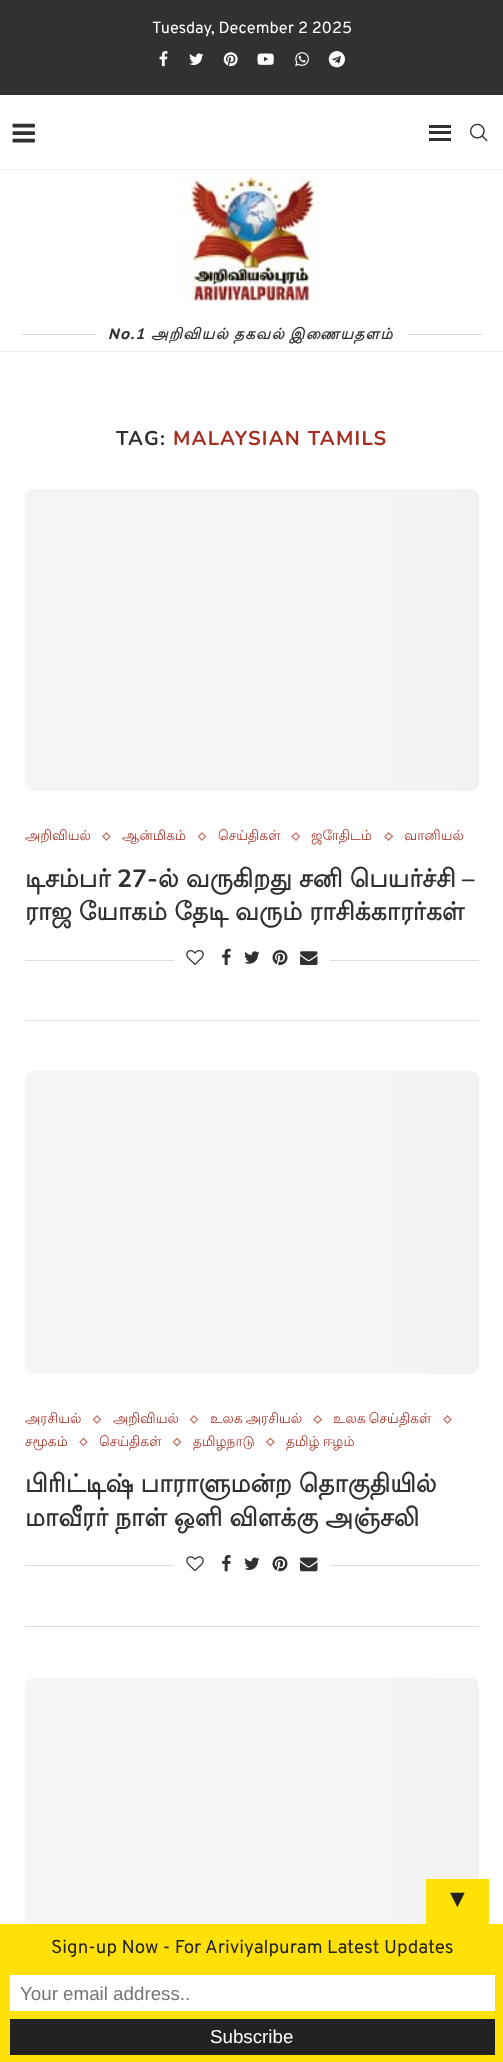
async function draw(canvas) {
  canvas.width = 503;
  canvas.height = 2062;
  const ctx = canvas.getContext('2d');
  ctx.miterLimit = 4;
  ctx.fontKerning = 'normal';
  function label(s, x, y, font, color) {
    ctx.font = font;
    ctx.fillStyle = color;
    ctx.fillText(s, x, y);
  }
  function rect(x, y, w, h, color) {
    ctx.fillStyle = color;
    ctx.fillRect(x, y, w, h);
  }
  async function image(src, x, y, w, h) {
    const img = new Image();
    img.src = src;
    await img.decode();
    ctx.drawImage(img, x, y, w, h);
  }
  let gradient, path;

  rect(0, 0, 503, 2062, '#fff');
  rect(0, 0, 503, 95, '#313131');
  label('Tuesday, December 2 2025', 152, 33, '16.25px Overpass', '#fff');
  await image('assets/img1.png', 159, 51, 9, 16);
  await image('assets/img2.png', 189, 53, 15, 12);
  await image('assets/img3.png', 223, 52, 15, 15);
  await image('assets/img4.png', 257, 53, 17, 12);
  await image('assets/img5.png', 295, 52, 14, 15);
  await image('assets/img6.png', 328, 51, 17, 17);
  rect(0, 169, 503, 1, '#ececec');
  await image('assets/img7.png', 12, 123, 23, 20);
  rect(429, 125, 22, 3, '#313131');
  rect(429, 138, 22, 3, '#313131');
  rect(429, 131, 22, 3, '#313131');
  await image('assets/img8.png', 470, 123, 18, 19);
  rect(0, 351, 503, 1, '#ececec');
  await image('assets/img9.png', 179, 176, 140, 126);
  rect(21, 334, 75, 1, '#dedede');
  ctx.letterSpacing = '1.25px';
  label('No.1', 108, 339, 'italic bold 15px PT Sans Caption', '#313131');
  ctx.wordSpacing = '-1px';
  label('அறிவியல் தகவல் இணையதளம்', 151, 339, 'italic bold 15px Lohit Tamil', '#313131');
  rect(408, 334, 75, 1, '#dedede');
  ctx.wordSpacing = '0px';
  label('TAG:', 116, 445, 'bold 20px Nunito', '#313131');
  label('MALAYSIAN TAMILS', 173, 445, 'bold 20px Nunito', '#a42e22');
  rect(25, 1020, 454, 1, '#dedede');
  gradient = ctx.createLinearGradient(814, 640, -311, 640);
  gradient.addColorStop(0, '#f5f5f5');
  gradient.addColorStop(0.15, '#efefef');
  gradient.addColorStop(0.4, '#f5f5f5');
  gradient.addColorStop(1, '#f5f5f5');
  ctx.fillStyle = gradient;
  ctx.beginPath();
  ctx.roundRect(25, 489, 454, 302, 8);
  ctx.fill();
  ctx.letterSpacing = '0px';
  label('அறிவியல்', 25, 840, '13.75px Lohit Tamil', '#a42e22');
  path = new Path2D('M106.5 833L110 836.5L106.5 840L103 836.5Z');
  ctx.strokeStyle = '#c4776f';
  ctx.lineWidth = 1.3;
  ctx.stroke(path);
  label('ஆன்மிகம்', 122, 840, '13.75px Lohit Tamil', '#a42e22');
  path = new Path2D('M202 833L205.5 836.5L202 840L198.5 836.5Z');
  ctx.stroke(path);
  label('செய்திகள்', 218, 840, '13.75px Lohit Tamil', '#a42e22');
  path = new Path2D('M296 833L299.5 836.5L296 840L292 836.5Z');
  ctx.stroke(path);
  label('ஜோதிடம்', 311, 840, '13.75px Lohit Tamil', '#a42e22');
  path = new Path2D('M388.5 833L392.5 836.5L388.5 840L385 836.5Z');
  ctx.stroke(path);
  label('வானியல்', 404, 840, '13.75px Lohit Tamil', '#a42e22');
  label('டிசம்பர்', 25, 887, 'bold 25px Lohit Tamil', '#313131');
  label('27-', 117, 887, 'bold 25px Nunito', '#313131');
  ctx.wordSpacing = '-0.5px';
  label('ல் வருகிறது சனி பெயர்ச்சி', 158, 887, 'bold 25px Lohit Tamil', '#313131');
  ctx.wordSpacing = '0px';
  label('–', 462, 887, 'bold 25px Nunito', '#313131');
  ctx.wordSpacing = '-0.5px';
  label('ராஜ யோகம் தேடி வரும் ராசிக்காரர்கள்', 25, 920, 'bold 25px Lohit Tamil', '#313131');
  rect(25, 960, 454, 1, '#dedede');
  rect(174, 960, 156, 1, '#fff');
  await image('assets/img10.png', 186, 950, 18, 15);
  await image('assets/img11.png', 222, 948, 9, 17);
  await image('assets/img12.png', 244, 951, 16, 13);
  await image('assets/img13.png', 272, 950, 16, 15);
  await image('assets/img14.png', 300, 951, 18, 14);
  rect(25, 1626, 454, 1, '#dedede');
  gradient = ctx.createLinearGradient(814, 1223, -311, 1223);
  gradient.addColorStop(0, '#f5f5f5');
  gradient.addColorStop(0.15, '#efefef');
  gradient.addColorStop(0.4, '#f5f5f5');
  gradient.addColorStop(1, '#f5f5f5');
  ctx.fillStyle = gradient;
  ctx.beginPath();
  ctx.roundRect(25, 1071, 454, 303, 8);
  ctx.fill();
  ctx.wordSpacing = '0px';
  label('அரசியல்', 25, 1423, '13.75px Lohit Tamil', '#a42e22');
  path = new Path2D('M97 1416L100.5 1419.5L97 1423L93.5 1419.5Z');
  ctx.stroke(path);
  label('அறிவியல்', 113, 1423, '13.75px Lohit Tamil', '#a42e22');
  path = new Path2D('M194 1416L197.5 1419.5L194 1423L190.5 1419.5Z');
  ctx.stroke(path);
  ctx.wordSpacing = '-1px';
  label('உலக அரசியல்', 210, 1423, '13.75px Lohit Tamil', '#a42e22');
  path = new Path2D('M317.5 1416L321.5 1419.5L317.5 1423L314 1419.5Z');
  ctx.stroke(path);
  label('உலக செய்திகள்', 333, 1423, '13.75px Lohit Tamil', '#a42e22');
  path = new Path2D('M447.5 1416L451 1419.5L447.5 1423L444 1419.5Z');
  ctx.stroke(path);
  ctx.wordSpacing = '0px';
  label('சமூகம்', 25, 1446, '13.75px Lohit Tamil', '#a42e22');
  path = new Path2D('M83.5 1438.5L87 1442L83.5 1445.5L80 1442Z');
  ctx.stroke(path);
  label('செய்திகள்', 99, 1446, '13.75px Lohit Tamil', '#a42e22');
  path = new Path2D('M177 1438.5L180.5 1442L177 1445.5L173.5 1442Z');
  ctx.stroke(path);
  label('தமிழநாடு', 193, 1446, '13.75px Lohit Tamil', '#a42e22');
  path = new Path2D('M270.5 1438.5L274 1442L270.5 1445.5L266.5 1442Z');
  ctx.stroke(path);
  ctx.wordSpacing = '-1px';
  label('தமிழ் ஈழம்', 286, 1446, '13.75px Lohit Tamil', '#a42e22');
  ctx.wordSpacing = '-0.5px';
  label('பிரிட்டிஷ் பாராளுமன்ற தொகுதியில்', 25, 1492, 'bold 25px Lohit Tamil', '#313131');
  label('மாவீரர் நாள் ஒளி விளக்கு அஞ்சலி', 25, 1526, 'bold 25px Lohit Tamil', '#313131');
  rect(25, 1565, 454, 1, '#dedede');
  rect(174, 1565, 156, 1, '#fff');
  await image('assets/img15.png', 186, 1556, 18, 16);
  await image('assets/img16.png', 222, 1555, 9, 17);
  await image('assets/img17.png', 244, 1557, 16, 13);
  await image('assets/img18.png', 272, 1556, 16, 16);
  await image('assets/img19.png', 300, 1557, 18, 15);
  gradient = ctx.createLinearGradient(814, 1829, -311, 1829);
  gradient.addColorStop(0, '#f5f5f5');
  gradient.addColorStop(0.15, '#efefef');
  gradient.addColorStop(0.4, '#f5f5f5');
  gradient.addColorStop(1, '#f5f5f5');
  ctx.fillStyle = gradient;
  ctx.beginPath();
  ctx.roundRect(25, 1678, 454, 302, 8);
  ctx.fill();
  rect(426, 1879, 63, 45, '#ffe108');
  ctx.wordSpacing = '0px';
  label('▼', 445, 1907, '25px Liberation Sans', '#222');
  rect(0, 1924, 503, 138, '#ffe108');
  label('Sign-up Now - For Ariviyalpuram Latest Updates', 51, 1953, '18.75px Overpass', '#222');
  rect(10, 1975, 485, 36, '#fff');
  label('Your email address..', 20, 2000, '18.75px Liberation Sans', '#757575');
  rect(10, 2019, 485, 36, '#222');
  label('Subscribe', 210, 2043, '18.75px Liberation Sans', '#fff');
}

draw(document.querySelector('canvas'));
